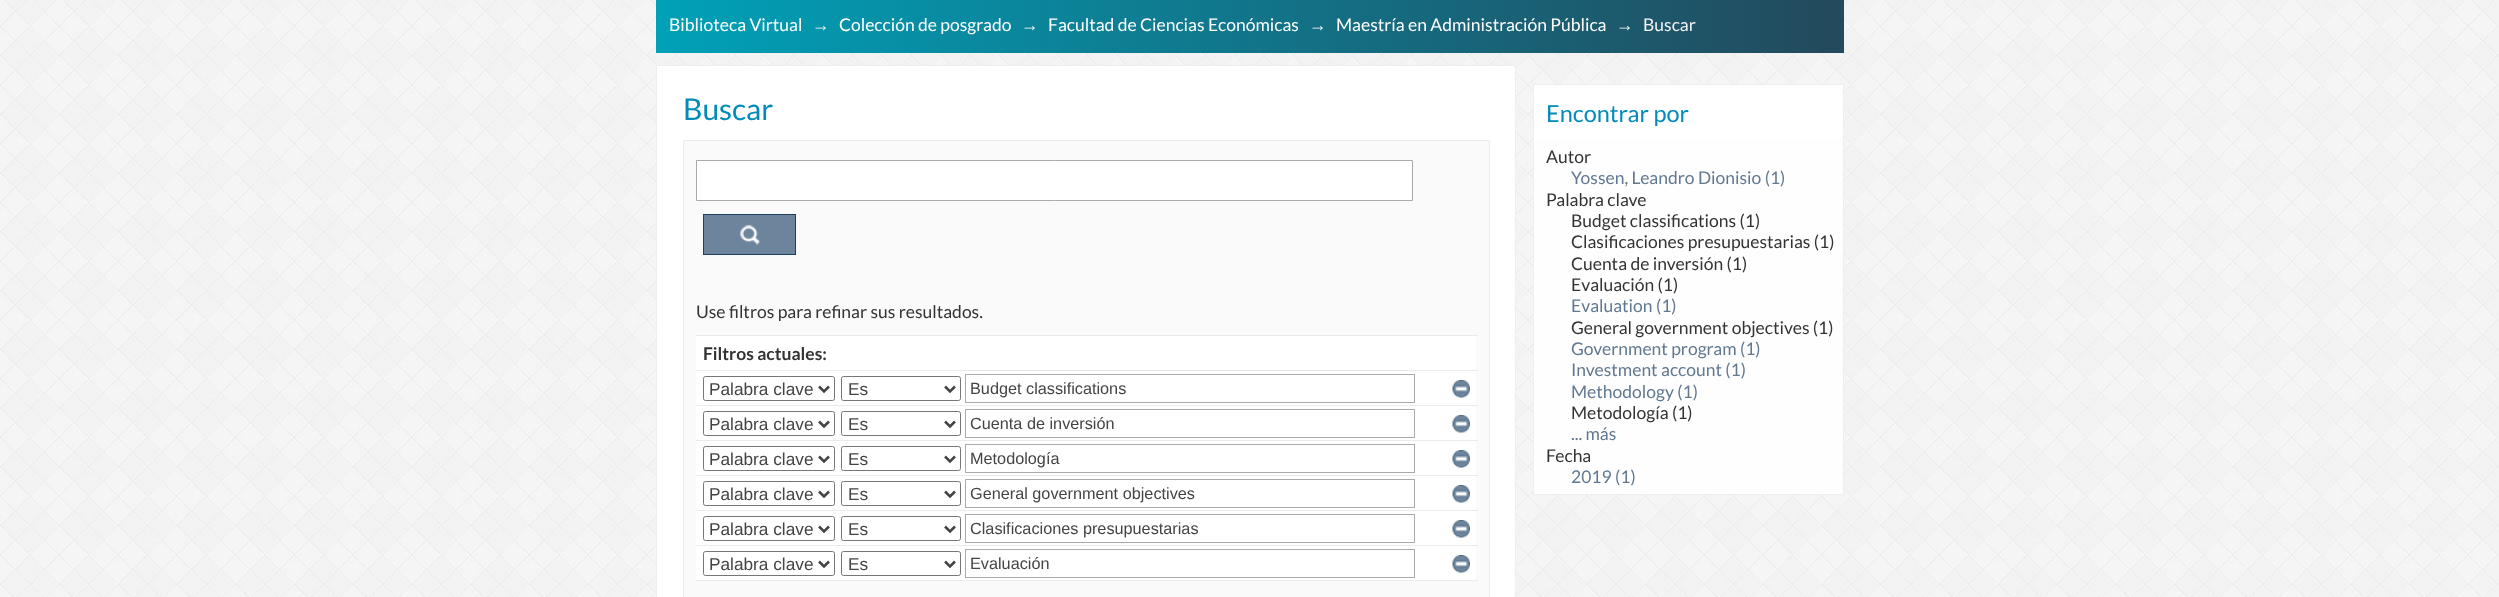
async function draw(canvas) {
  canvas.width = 2499;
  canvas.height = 597;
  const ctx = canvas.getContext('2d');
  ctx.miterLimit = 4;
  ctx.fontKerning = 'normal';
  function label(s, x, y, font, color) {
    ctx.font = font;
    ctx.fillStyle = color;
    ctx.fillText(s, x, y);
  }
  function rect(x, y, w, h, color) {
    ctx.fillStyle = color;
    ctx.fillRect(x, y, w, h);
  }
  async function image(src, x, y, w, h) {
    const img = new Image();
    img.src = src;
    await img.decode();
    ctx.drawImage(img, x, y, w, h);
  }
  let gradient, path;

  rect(0, 0, 2499, 597, '#fff');
  await image('assets/img1.png', 0, 0, 2499, 597);
  gradient = ctx.createLinearGradient(656, 24, 1844, 24);
  gradient.addColorStop(0, '#00a1b8');
  gradient.addColorStop(1, '#23495c');
  ctx.fillStyle = gradient;
  ctx.fillRect(656, 0, 1188, 53);
  label('Biblioteca Virtual', 669, 31, '17.5px Lato', '#fff');
  label('→', 812, 31, '17.5px Liberation Sans', '#f3f3f3');
  label('Colección de posgrado', 839, 31, '17.5px Lato', '#fff');
  label('→', 1021, 31, '17.5px Liberation Sans', '#f3f3f3');
  label('Facultad de Ciencias Económicas', 1048, 31, '17.5px Lato', '#fff');
  label('→', 1309, 31, '17.5px Liberation Sans', '#f3f3f3');
  label('Maestría en Administración Pública', 1336, 31, '17.5px Lato', '#fff');
  label('→', 1616, 31, '17.5px Liberation Sans', '#f3f3f3');
  label('Buscar', 1643, 31, '17.5px Lato', '#f3f3f3');
  ctx.fillStyle = '#fff';
  ctx.beginPath();
  ctx.rect(656.5, 65.5, 859, 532);
  ctx.fill();
  ctx.strokeStyle = '#eee';
  ctx.stroke();
  label('Buscar', 683, 120, '30px Lato', '#008bb8');
  ctx.fillStyle = '#fafafa';
  ctx.beginPath();
  ctx.rect(683.5, 140.5, 806, 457);
  ctx.fill();
  ctx.strokeStyle = '#ebebeb';
  ctx.stroke();
  ctx.fillStyle = '#fff';
  ctx.beginPath();
  ctx.rect(696.5, 160.5, 716, 40);
  ctx.fill();
  ctx.strokeStyle = '#aaa';
  ctx.stroke();
  rect(704, 215, 91, 39, '#6d859c');
  await image('assets/img2.png', 739, 224, 22, 22);
  ctx.strokeStyle = '#1f3f5e';
  ctx.strokeRect(703.5, 214.5, 92, 40);
  label('Use filtros para refinar sus resultados.', 696, 318, '17.5px Lato', '#333');
  rect(696, 336, 780, 244, '#fff');
  rect(696, 335, 782, 1, '#ebebeb');
  label('Filtros actuales:', 703, 360, 'bold 17.5px Lato', '#333');
  rect(696, 370, 782, 1, '#ebebeb');
  ctx.beginPath();
  ctx.roundRect(703.5, 376.5, 131, 24, 2);
  ctx.strokeStyle = '#767676';
  ctx.stroke();
  path = new Path2D('M819 386.5L824 391.5L829 386.5');
  ctx.strokeStyle = '#444';
  ctx.lineWidth = 2.5;
  ctx.stroke(path);
  label('Palabra clave', 709, 395, '17.25px Liberation Sans', '#444');
  ctx.beginPath();
  ctx.roundRect(841.5, 376.5, 119, 24, 2);
  ctx.strokeStyle = '#767676';
  ctx.lineWidth = 1;
  ctx.stroke();
  path = new Path2D('M945 386.5L950 391.5L955 386.5');
  ctx.strokeStyle = '#444';
  ctx.lineWidth = 2.5;
  ctx.stroke(path);
  label('Es', 848, 395, '17.25px Liberation Sans', '#444');
  ctx.strokeStyle = '#aaa';
  ctx.lineWidth = 1;
  ctx.strokeRect(965.5, 374.5, 449, 28);
  label('Budget classifications', 970, 394, '16.25px Liberation Sans', '#444');
  await image('assets/img3.png', 1452, 380, 18, 18);
  rect(696, 405, 782, 1, '#ebebeb');
  ctx.beginPath();
  ctx.roundRect(703.5, 411.5, 131, 24, 2);
  ctx.strokeStyle = '#767676';
  ctx.stroke();
  path = new Path2D('M819 421.5L824 426.5L829 421.5');
  ctx.strokeStyle = '#444';
  ctx.lineWidth = 2.5;
  ctx.stroke(path);
  label('Palabra clave', 709, 430, '17.25px Liberation Sans', '#444');
  ctx.beginPath();
  ctx.roundRect(841.5, 411.5, 119, 24, 2);
  ctx.strokeStyle = '#767676';
  ctx.lineWidth = 1;
  ctx.stroke();
  path = new Path2D('M945 421.5L950 426.5L955 421.5');
  ctx.strokeStyle = '#444';
  ctx.lineWidth = 2.5;
  ctx.stroke(path);
  label('Es', 848, 430, '17.25px Liberation Sans', '#444');
  ctx.strokeStyle = '#aaa';
  ctx.lineWidth = 1;
  ctx.strokeRect(965.5, 409.5, 449, 28);
  label('Cuenta de inversión', 970, 429, '16.25px Liberation Sans', '#444');
  await image('assets/img3.png', 1452, 415, 18, 18);
  rect(696, 440, 782, 1, '#ebebeb');
  ctx.beginPath();
  ctx.roundRect(703.5, 446.5, 131, 24, 2);
  ctx.strokeStyle = '#767676';
  ctx.stroke();
  path = new Path2D('M819 456.5L824 461.5L829 456.5');
  ctx.strokeStyle = '#444';
  ctx.lineWidth = 2.5;
  ctx.stroke(path);
  label('Palabra clave', 709, 465, '17.25px Liberation Sans', '#444');
  ctx.beginPath();
  ctx.roundRect(841.5, 446.5, 119, 24, 2);
  ctx.strokeStyle = '#767676';
  ctx.lineWidth = 1;
  ctx.stroke();
  path = new Path2D('M945 456.5L950 461.5L955 456.5');
  ctx.strokeStyle = '#444';
  ctx.lineWidth = 2.5;
  ctx.stroke(path);
  label('Es', 848, 465, '17.25px Liberation Sans', '#444');
  ctx.strokeStyle = '#aaa';
  ctx.lineWidth = 1;
  ctx.strokeRect(965.5, 444.5, 449, 28);
  label('Metodología', 970, 464, '16.25px Liberation Sans', '#444');
  await image('assets/img3.png', 1452, 450, 18, 18);
  rect(696, 475, 782, 1, '#ebebeb');
  ctx.beginPath();
  ctx.roundRect(703.5, 481.5, 131, 24, 2);
  ctx.strokeStyle = '#767676';
  ctx.stroke();
  path = new Path2D('M819 491.5L824 496.5L829 491.5');
  ctx.strokeStyle = '#444';
  ctx.lineWidth = 2.5;
  ctx.stroke(path);
  label('Palabra clave', 709, 500, '17.25px Liberation Sans', '#444');
  ctx.beginPath();
  ctx.roundRect(841.5, 481.5, 119, 24, 2);
  ctx.strokeStyle = '#767676';
  ctx.lineWidth = 1;
  ctx.stroke();
  path = new Path2D('M945 491.5L950 496.5L955 491.5');
  ctx.strokeStyle = '#444';
  ctx.lineWidth = 2.5;
  ctx.stroke(path);
  label('Es', 848, 500, '17.25px Liberation Sans', '#444');
  ctx.strokeStyle = '#aaa';
  ctx.lineWidth = 1;
  ctx.strokeRect(965.5, 479.5, 449, 28);
  label('General government objectives', 970, 499, '16.25px Liberation Sans', '#444');
  await image('assets/img3.png', 1452, 485, 18, 18);
  rect(696, 510, 782, 1, '#ebebeb');
  ctx.beginPath();
  ctx.roundRect(703.5, 516.5, 131, 24, 2);
  ctx.strokeStyle = '#767676';
  ctx.stroke();
  path = new Path2D('M819 526.5L824 531.5L829 526.5');
  ctx.strokeStyle = '#444';
  ctx.lineWidth = 2.5;
  ctx.stroke(path);
  label('Palabra clave', 709, 535, '17.25px Liberation Sans', '#444');
  ctx.beginPath();
  ctx.roundRect(841.5, 516.5, 119, 24, 2);
  ctx.strokeStyle = '#767676';
  ctx.lineWidth = 1;
  ctx.stroke();
  path = new Path2D('M945 526.5L950 531.5L955 526.5');
  ctx.strokeStyle = '#444';
  ctx.lineWidth = 2.5;
  ctx.stroke(path);
  label('Es', 848, 535, '17.25px Liberation Sans', '#444');
  ctx.strokeStyle = '#aaa';
  ctx.lineWidth = 1;
  ctx.strokeRect(965.5, 514.5, 449, 28);
  label('Clasificaciones presupuestarias', 970, 534, '16.25px Liberation Sans', '#444');
  await image('assets/img3.png', 1452, 520, 18, 18);
  rect(696, 545, 782, 1, '#ebebeb');
  ctx.beginPath();
  ctx.roundRect(703.5, 551.5, 131, 24, 2);
  ctx.strokeStyle = '#767676';
  ctx.stroke();
  path = new Path2D('M819 561.5L824 566.5L829 561.5');
  ctx.strokeStyle = '#444';
  ctx.lineWidth = 2.5;
  ctx.stroke(path);
  label('Palabra clave', 709, 570, '17.25px Liberation Sans', '#444');
  ctx.beginPath();
  ctx.roundRect(841.5, 551.5, 119, 24, 2);
  ctx.strokeStyle = '#767676';
  ctx.lineWidth = 1;
  ctx.stroke();
  path = new Path2D('M945 561.5L950 566.5L955 561.5');
  ctx.strokeStyle = '#444';
  ctx.lineWidth = 2.5;
  ctx.stroke(path);
  label('Es', 848, 570, '17.25px Liberation Sans', '#444');
  ctx.strokeStyle = '#aaa';
  ctx.lineWidth = 1;
  ctx.strokeRect(965.5, 549.5, 449, 28);
  label('Evaluación', 970, 569, '16.25px Liberation Sans', '#444');
  await image('assets/img3.png', 1452, 555, 18, 18);
  rect(696, 580, 782, 1, '#ebebeb');
  rect(1534, 85, 309, 54, '#fff');
  rect(1533, 84, 311, 1, '#eee');
  rect(1843, 84, 1, 411, '#eee');
  rect(1533, 84, 1, 55, '#eee');
  label('Encontrar por', 1546, 122, '23.5px Lato', '#008bb8');
  rect(1534, 139, 309, 355, '#fefefe');
  rect(1533, 494, 311, 1, '#eee');
  rect(1533, 139, 1, 356, '#eee');
  label('Autor', 1546, 163, '17.5px Lato', '#333');
  label('Yossen, Leandro Dionisio (1)', 1571, 184, '17.5px Lato', '#607890');
  label('Palabra clave', 1546, 206, '17.5px Lato', '#333');
  label('Budget classifications (1)', 1571, 227, '17.5px Lato', '#333');
  label('Clasificaciones presupuestarias (1)', 1571, 248, '17.5px Lato', '#333');
  label('Cuenta de inversión (1)', 1571, 270, '17.5px Lato', '#333');
  label('Evaluación (1)', 1571, 291, '17.5px Lato', '#333');
  label('Evaluation (1)', 1571, 312, '17.5px Lato', '#607890');
  label('General government objectives (1)', 1571, 334, '17.5px Lato', '#333');
  label('Government program (1)', 1571, 355, '17.5px Lato', '#607890');
  label('Investment account (1)', 1571, 376, '17.5px Lato', '#607890');
  label('Methodology (1)', 1571, 398, '17.5px Lato', '#607890');
  label('Metodología (1)', 1571, 419, '17.5px Lato', '#333');
  label('... más', 1571, 440, '17.5px Lato', '#607890');
  label('Fecha', 1546, 462, '17.5px Lato', '#333');
  label('2019 (1)', 1571, 483, '17.5px Lato', '#607890');
}

draw(document.querySelector('canvas'));
